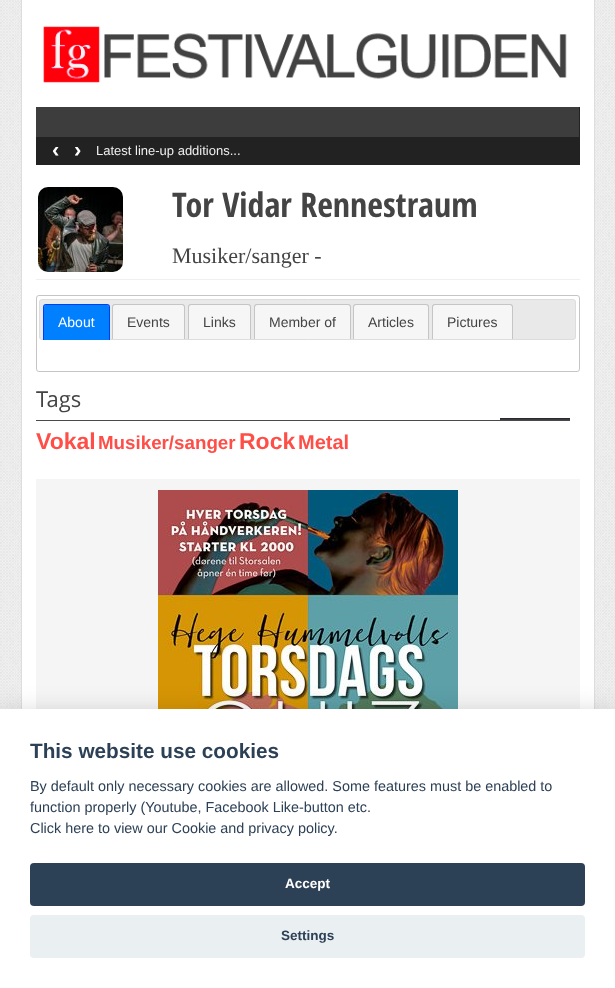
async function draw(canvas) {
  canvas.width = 615;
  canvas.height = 988;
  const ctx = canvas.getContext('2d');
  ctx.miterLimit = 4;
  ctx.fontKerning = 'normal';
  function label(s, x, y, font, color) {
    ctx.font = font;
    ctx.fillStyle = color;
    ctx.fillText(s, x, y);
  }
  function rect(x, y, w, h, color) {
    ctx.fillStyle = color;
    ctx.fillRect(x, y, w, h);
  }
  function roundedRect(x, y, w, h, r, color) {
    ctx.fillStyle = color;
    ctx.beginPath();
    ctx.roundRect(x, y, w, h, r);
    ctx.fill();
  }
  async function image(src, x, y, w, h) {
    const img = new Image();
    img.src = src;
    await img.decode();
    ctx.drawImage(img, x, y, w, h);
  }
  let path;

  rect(0, 0, 615, 988, '#fff');
  await image('assets/img1.png', 0, 0, 615, 709);
  rect(22, 0, 572, 709, '#fff');
  rect(594, 0, 1, 709, '#ddd');
  rect(21, 0, 1, 709, '#ddd');
  await image('assets/img2.png', 43, 26, 524, 57);
  rect(579, 107, 1, 30, '#222');
  rect(36, 107, 543, 30, '#3d3d3d');
  rect(36, 137, 544, 28, '#222');
  label('‹', 52, 157, 'bold 22px Liberation Sans', '#fff');
  label('›', 74, 157, 'bold 22px Liberation Sans', '#fff');
  label('Latest line-up additions...', 96, 155, '13px Liberation Sans', '#efefef');
  await image('assets/img3.png', 38, 187, 85, 85);
  label('Tor Vidar Rennestraum', 172, 217, 'bold 34px Open Sans Condensed', '#444');
  label('Musiker/sanger -', 172, 263, '22px Liberation Serif', '#444');
  rect(36, 279, 544, 1, '#efefef');
  ctx.beginPath();
  ctx.roundRect(36.5, 295.5, 543, 76, 2.5);
  ctx.strokeStyle = '#c5c5c5';
  ctx.stroke();
  ctx.fillStyle = '#e9e9e9';
  ctx.beginPath();
  ctx.roundRect(39.5, 299.5, 536, 40, 2.5);
  ctx.fill();
  ctx.strokeStyle = '#ddd';
  ctx.stroke();
  ctx.fillStyle = '#007fff';
  ctx.beginPath();
  ctx.roundRect(44, 305, 65, 35, [2, 2, 0, 0]);
  ctx.fill();
  ctx.fillStyle = '#003eff';
  path = new Path2D('M46 304H107C109 304 110 305 110 307V340H43V307C43 305 44 304 46 304ZM46 305H107C108 305 109 306 109 307V340H44V307C44 306 45 305 46 305Z');
  ctx.fill(path, 'evenodd');
  label('About', 58, 327, '14px Liberation Sans', '#fff');
  ctx.fillStyle = '#f6f6f6';
  ctx.beginPath();
  ctx.roundRect(113, 305, 71, 34, [2, 2, 0, 0]);
  ctx.fill();
  ctx.fillStyle = '#c5c5c5';
  path = new Path2D('M115 304H182C184 304 185 305 185 307V339H112V307C112 305 113 304 115 304ZM115 305H182C183 305 184 306 184 307V339H113V307C113 306 114 305 115 305Z');
  ctx.fill(path, 'evenodd');
  label('Events', 127, 327, '14px Liberation Sans', '#444');
  ctx.fillStyle = '#f6f6f6';
  ctx.beginPath();
  ctx.roundRect(189, 305, 61, 34, [2, 2, 0, 0]);
  ctx.fill();
  ctx.fillStyle = '#c5c5c5';
  path = new Path2D('M191 304H248C250 304 251 305 251 307V339H188V307C188 305 189 304 191 304ZM191 305H248C249 305 250 306 250 307V339H189V307C189 306 190 305 191 305Z');
  ctx.fill(path, 'evenodd');
  label('Links', 203, 327, '14px Liberation Sans', '#444');
  ctx.fillStyle = '#f6f6f6';
  ctx.beginPath();
  ctx.roundRect(255, 305, 95, 34, [2, 2, 0, 0]);
  ctx.fill();
  ctx.fillStyle = '#c5c5c5';
  path = new Path2D('M257 304H348C350 304 351 305 351 307V339H254V307C254 305 255 304 257 304ZM257 305H348C349 305 350 306 350 307V339H255V307C255 306 256 305 257 305Z');
  ctx.fill(path, 'evenodd');
  label('Member of', 269, 327, '14px Liberation Sans', '#444');
  ctx.fillStyle = '#f6f6f6';
  ctx.beginPath();
  ctx.roundRect(354, 305, 74, 34, [2, 2, 0, 0]);
  ctx.fill();
  ctx.fillStyle = '#c5c5c5';
  path = new Path2D('M356 304H426C428 304 429 305 429 307V339H353V307C353 305 354 304 356 304ZM356 305H426C427 305 428 306 428 307V339H354V307C354 306 355 305 356 305Z');
  ctx.fill(path, 'evenodd');
  label('Articles', 368, 327, '14px Liberation Sans', '#444');
  ctx.fillStyle = '#f6f6f6';
  ctx.beginPath();
  ctx.roundRect(433, 305, 79, 34, [2, 2, 0, 0]);
  ctx.fill();
  ctx.fillStyle = '#c5c5c5';
  path = new Path2D('M435 304H510C512 304 513 305 513 307V339H432V307C432 305 433 304 435 304ZM435 305H510C511 305 512 306 512 307V339H433V307C433 306 434 305 435 305Z');
  ctx.fill(path, 'evenodd');
  label('Pictures', 447, 327, '14px Liberation Sans', '#444');
  await image('assets/img4.png', 500, 418, 70, 2);
  rect(36, 420, 534, 1, '#4a4a4a');
  label('Tags', 36, 407, '22px Open Sans', '#444');
  label('Vokal', 36, 449, 'bold 23px Liberation Sans', '#fe4e47');
  label('Musiker/sanger', 98, 449, 'bold 18.75px Liberation Sans', '#fe4e47');
  label('Rock', 239, 449, 'bold 23px Liberation Sans', '#fe4e47');
  label('Metal', 298, 449, 'bold 20px Liberation Sans', '#fe4e47');
  rect(36, 479, 544, 230, '#f5f5f5');
  await image('assets/img5.png', 158, 490, 300, 219);
  ctx.fillStyle = '#02020347';
  ctx.filter = 'blur(15px)';
  ctx.beginPath();
  ctx.rect(0, 719, 615, 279);
  ctx.fill();
  ctx.filter = 'none';
  rect(0, 709, 615, 279, '#fff');
  label('This website use cookies', 30, 758, 'bold 20.75px Liberation Sans', '#2d4156');
  label('By default only necessary cookies are allowed. Some features must be enabled to', 30, 791, '14.4px Liberation Sans', '#2d4156');
  label('function properly (Youtube, Facebook Like-button etc.', 30, 812, '14.4px Liberation Sans', '#2d4156');
  label('Click here to view our Cookie and privacy policy.', 30, 833, '14.4px Liberation Sans', '#2d4156');
  roundedRect(30, 863, 555, 43, 4, '#2d4156');
  label('Accept', 285, 888, 'bold 13.5px Liberation Sans', '#fff');
  roundedRect(30, 915, 555, 43, 4, '#eaeff2');
  label('Settings', 281, 940, 'bold 13.5px Liberation Sans', '#2d4156');
}

draw(document.querySelector('canvas'));
